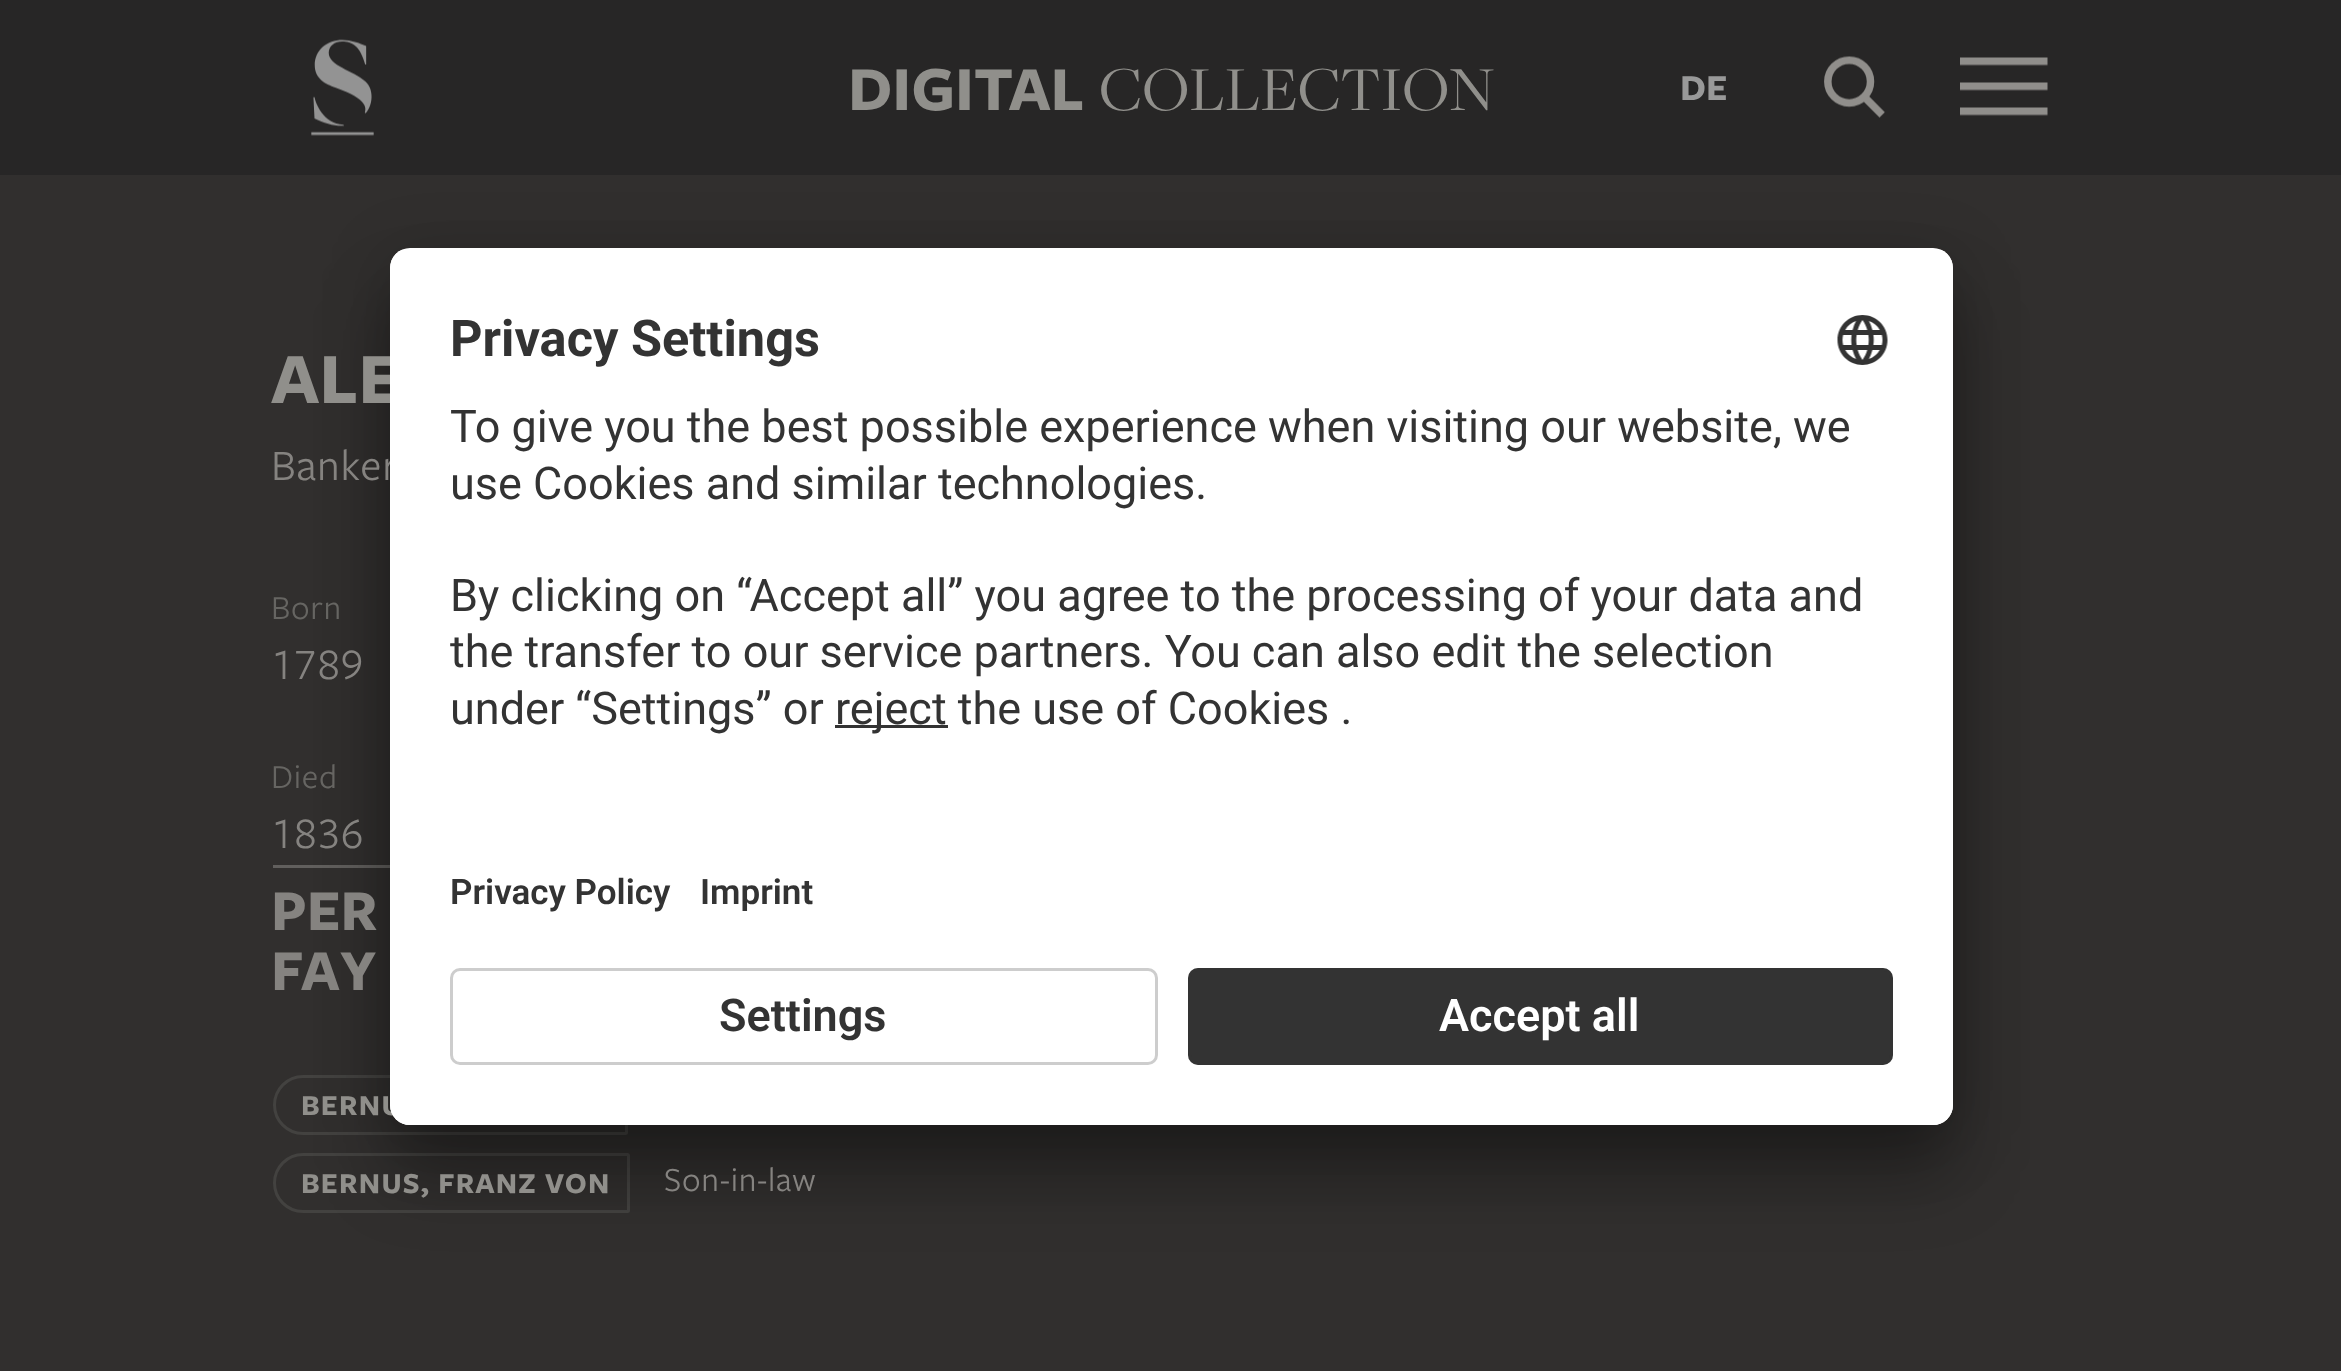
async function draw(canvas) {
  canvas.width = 2341;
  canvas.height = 1371;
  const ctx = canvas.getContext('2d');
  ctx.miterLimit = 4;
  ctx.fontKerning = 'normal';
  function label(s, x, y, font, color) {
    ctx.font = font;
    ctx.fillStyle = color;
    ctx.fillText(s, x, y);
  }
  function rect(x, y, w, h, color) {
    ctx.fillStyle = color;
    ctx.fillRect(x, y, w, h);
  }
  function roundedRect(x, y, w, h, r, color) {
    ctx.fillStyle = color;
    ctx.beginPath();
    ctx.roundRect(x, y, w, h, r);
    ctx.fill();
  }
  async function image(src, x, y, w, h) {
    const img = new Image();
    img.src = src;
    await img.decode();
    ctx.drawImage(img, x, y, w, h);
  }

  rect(0, 0, 2341, 1371, '#312f2e');
  rect(0, 0, 2341, 175, '#272626');
  await image('assets/img1.png', 311, 39, 63, 97);
  label('DIGITAL', 848, 110, 'bold 65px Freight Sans', '#908f8b');
  label('COLLECTION', 1099, 110, '65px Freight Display', '#908f8b');
  label('DE', 1680, 100, 'bold 38px Freight Sans', '#999');
  await image('assets/img2.png', 1824, 56, 61, 62);
  await image('assets/img3.png', 1960, 57, 88, 59);
  rect(273, 865, 117, 3, '#615f5d');
  ctx.beginPath();
  ctx.roundRect(274.5, 1076.5, 352, 57, [28.5, 1, 1, 28.5]);
  ctx.strokeStyle = '#434240';
  ctx.lineWidth = 3;
  ctx.stroke();
  ctx.beginPath();
  ctx.roundRect(274.5, 1154.5, 354, 57, [28.5, 1, 1, 28.5]);
  ctx.stroke();
  ctx.fillStyle = '#0000004d';
  ctx.filter = 'blur(35px)';
  ctx.beginPath();
  ctx.roundRect(390, 298, 1563, 877, 20);
  ctx.fill();
  ctx.filter = 'none';
  ctx.fillStyle = '#00000038';
  ctx.filter = 'blur(32.5px)';
  ctx.beginPath();
  ctx.roundRect(390, 260, 1563, 878, 20);
  ctx.fill();
  ctx.filter = 'none';
  label('ALE', 271, 403, 'bold 75px Freight Sans', '#908f8b');
  ctx.letterSpacing = '0.75px';
  label('Banker', 271, 480, '45px Freight Sans', '#858380');
  ctx.letterSpacing = '1.25px';
  label('BERNU', 301, 1115, 'bold 30px Freight Sans', '#908f8b');
  roundedRect(390, 248, 1563, 877, 20, '#fff');
  ctx.save();
  ctx.beginPath();
  ctx.roundRect(390, 248, 1563, 877, 20);
  ctx.clip();
  ctx.beginPath();
  ctx.roundRect(390, 248, 1563, 700, [20, 20, 0, 0]);
  ctx.clip();
  rect(390, 250, 1563, 698, '#fff');
  ctx.restore();
  ctx.letterSpacing = '0px';
  label('Privacy Settings', 450, 356, 'bold 50.5px Roboto', '#333');
  await image('assets/img4.png', 1837, 315, 51, 50);
  label('To give you the best possible experience when visiting our website, we', 450, 442, '45px Roboto', '#333');
  label('use Cookies and similar technologies.', 450, 499, '45px Roboto', '#333');
  label('By clicking on “Accept all” you agree to the processing of your data and', 450, 611, '45px Roboto', '#333');
  label('the transfer to our service partners. You can also edit the selection', 450, 667, '45px Roboto', '#333');
  label('under “Settings” or', 450, 724, '45px Roboto', '#333');
  rect(835, 725, 113, 3, '#333');
  label('reject the use of Cookies .', 835, 724, '45px Roboto', '#333');
  label('Privacy Policy', 450, 904, '600 35px Roboto', '#333');
  label('Imprint', 700, 904, '600 35px Roboto', '#333');
  ctx.fillStyle = '#fff';
  ctx.beginPath();
  ctx.roundRect(390, 948, 1563, 177, [0, 0, 20, 20]);
  ctx.fill();
  ctx.beginPath();
  ctx.roundRect(451.5, 969.5, 705, 94, 8.5);
  ctx.strokeStyle = '#cdcdcd';
  ctx.stroke();
  label('Settings', 719, 1031, '600 45px Roboto', '#333');
  roundedRect(1188, 968, 705, 97, 10, '#333');
  ctx.beginPath();
  ctx.roundRect(1189.5, 969.5, 702, 94, 8.5);
  ctx.strokeStyle = '#35353540';
  ctx.stroke();
  label('Accept all', 1439, 1031, '600 45px Roboto', '#fff');
  ctx.letterSpacing = '0.75px';
  label('Born', 271, 619, '35px Freight Sans', '#666562');
  label('1789', 271, 679, '45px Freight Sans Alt', '#858380');
  label('Died', 271, 788, '35px Freight Sans', '#666562');
  label('1836', 271, 848, '45px Freight Sans Alt', '#858380');
  ctx.letterSpacing = '0px';
  label('PER', 271, 930, 'bold 60px Freight Sans', '#858380');
  label('FAY', 271, 990, 'bold 60px Freight Sans', '#858380');
  ctx.letterSpacing = '1.25px';
  label('BERNUS, FRANZ VON', 301, 1193, 'bold 30px Freight Sans', '#908f8b');
  ctx.letterSpacing = '0.75px';
  label('Son-in-law', 664, 1191, '35px Freight Sans', '#858380');
}

draw(document.querySelector('canvas'));
